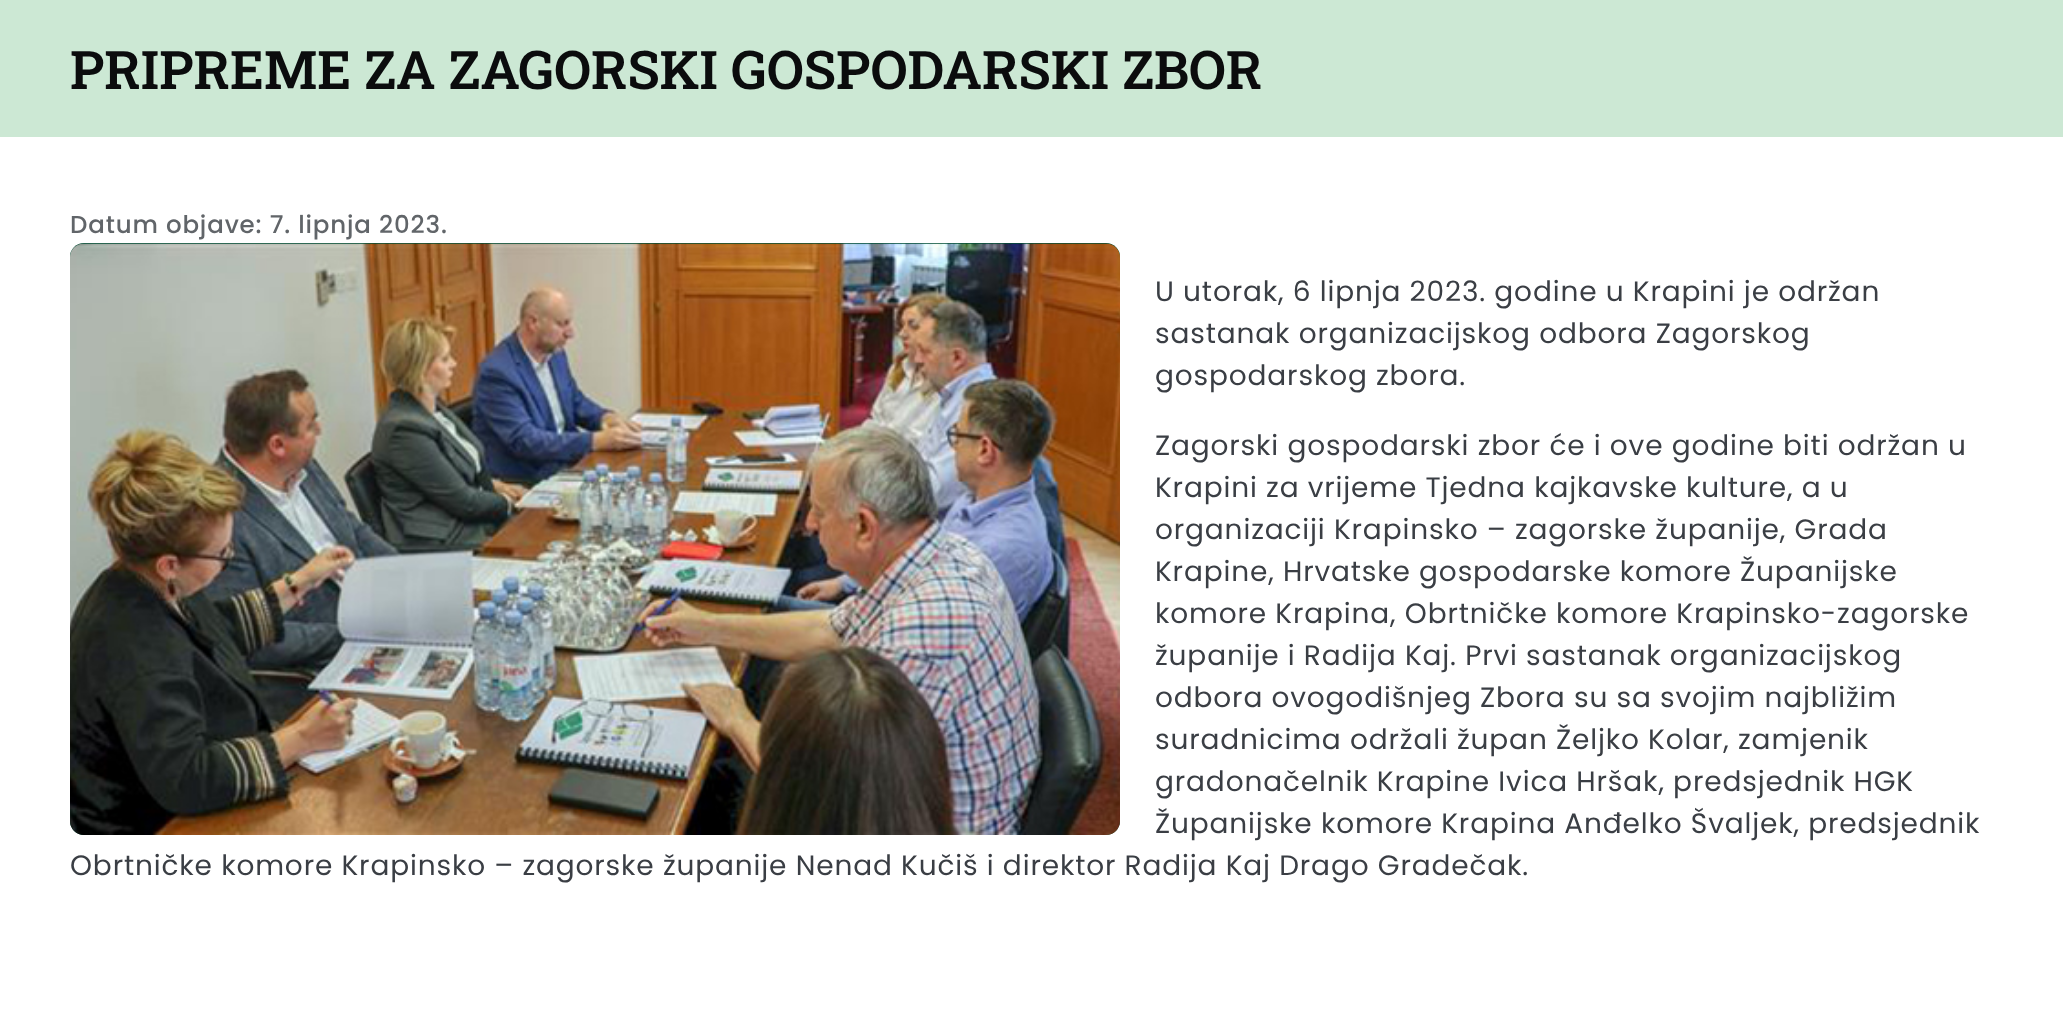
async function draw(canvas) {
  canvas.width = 2063;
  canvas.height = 1010;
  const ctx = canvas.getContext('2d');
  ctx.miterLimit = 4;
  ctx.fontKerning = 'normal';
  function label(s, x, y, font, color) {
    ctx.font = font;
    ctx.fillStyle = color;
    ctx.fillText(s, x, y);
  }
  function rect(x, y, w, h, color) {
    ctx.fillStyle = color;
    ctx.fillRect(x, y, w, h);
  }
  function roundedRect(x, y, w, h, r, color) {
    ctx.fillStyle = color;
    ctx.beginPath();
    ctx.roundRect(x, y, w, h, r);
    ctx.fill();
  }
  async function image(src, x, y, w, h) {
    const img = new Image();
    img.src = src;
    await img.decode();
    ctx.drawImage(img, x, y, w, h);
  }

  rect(0, 0, 2063, 1010, '#fff');
  rect(0, 0, 2063, 137, '#cce8d4');
  label('PRIPREME ZA ZAGORSKI GOSPODARSKI ZBOR', 70, 89, '600 53.25px Roboto Slab', '#0b0c0d');
  ctx.letterSpacing = '0.85px';
  label('Datum objave: 7. lipnja 2023.', 70, 233, '500 24.5px Poppins', '#616569');
  roundedRect(70, 243, 1050, 592, 14, '#004d34');
  await image('assets/img1.png', 70, 243, 1050, 592);
  label('U utorak, 6 lipnja 2023. godine u Krapini je održan', 1155, 301, '28px Poppins', '#3a3e44');
  label('sastanak organizacijskog odbora Zagorskog', 1155, 343, '28px Poppins', '#3a3e44');
  label('gospodarskog zbora.', 1155, 385, '28px Poppins', '#3a3e44');
  label('Zagorski gospodarski zbor će i ove godine biti održan u', 1155, 455, '28px Poppins', '#3a3e44');
  label('Krapini za vrijeme Tjedna kajkavske kulture, a u', 1155, 497, '28px Poppins', '#3a3e44');
  label('organizaciji Krapinsko – zagorske županije, Grada', 1155, 539, '28px Poppins', '#3a3e44');
  label('Krapine, Hrvatske gospodarske komore Županijske', 1155, 581, '28px Poppins', '#3a3e44');
  label('komore Krapina, Obrtničke komore Krapinsko-zagorske', 1155, 623, '28px Poppins', '#3a3e44');
  label('županije i Radija Kaj. Prvi sastanak organizacijskog', 1155, 665, '28px Poppins', '#3a3e44');
  label('odbora ovogodišnjeg Zbora su sa svojim najbližim', 1155, 707, '28px Poppins', '#3a3e44');
  label('suradnicima održali župan Željko Kolar, zamjenik', 1155, 749, '28px Poppins', '#3a3e44');
  label('gradonačelnik Krapine Ivica Hršak, predsjednik HGK', 1155, 791, '28px Poppins', '#3a3e44');
  label('Županijske komore Krapina Anđelko Švaljek, predsjednik', 1155, 833, '28px Poppins', '#3a3e44');
  label('Obrtničke komore Krapinsko – zagorske županije Nenad Kučiš i direktor Radija Kaj Drago Gradečak.', 70, 875, '28px Poppins', '#3a3e44');
}

draw(document.querySelector('canvas'));
